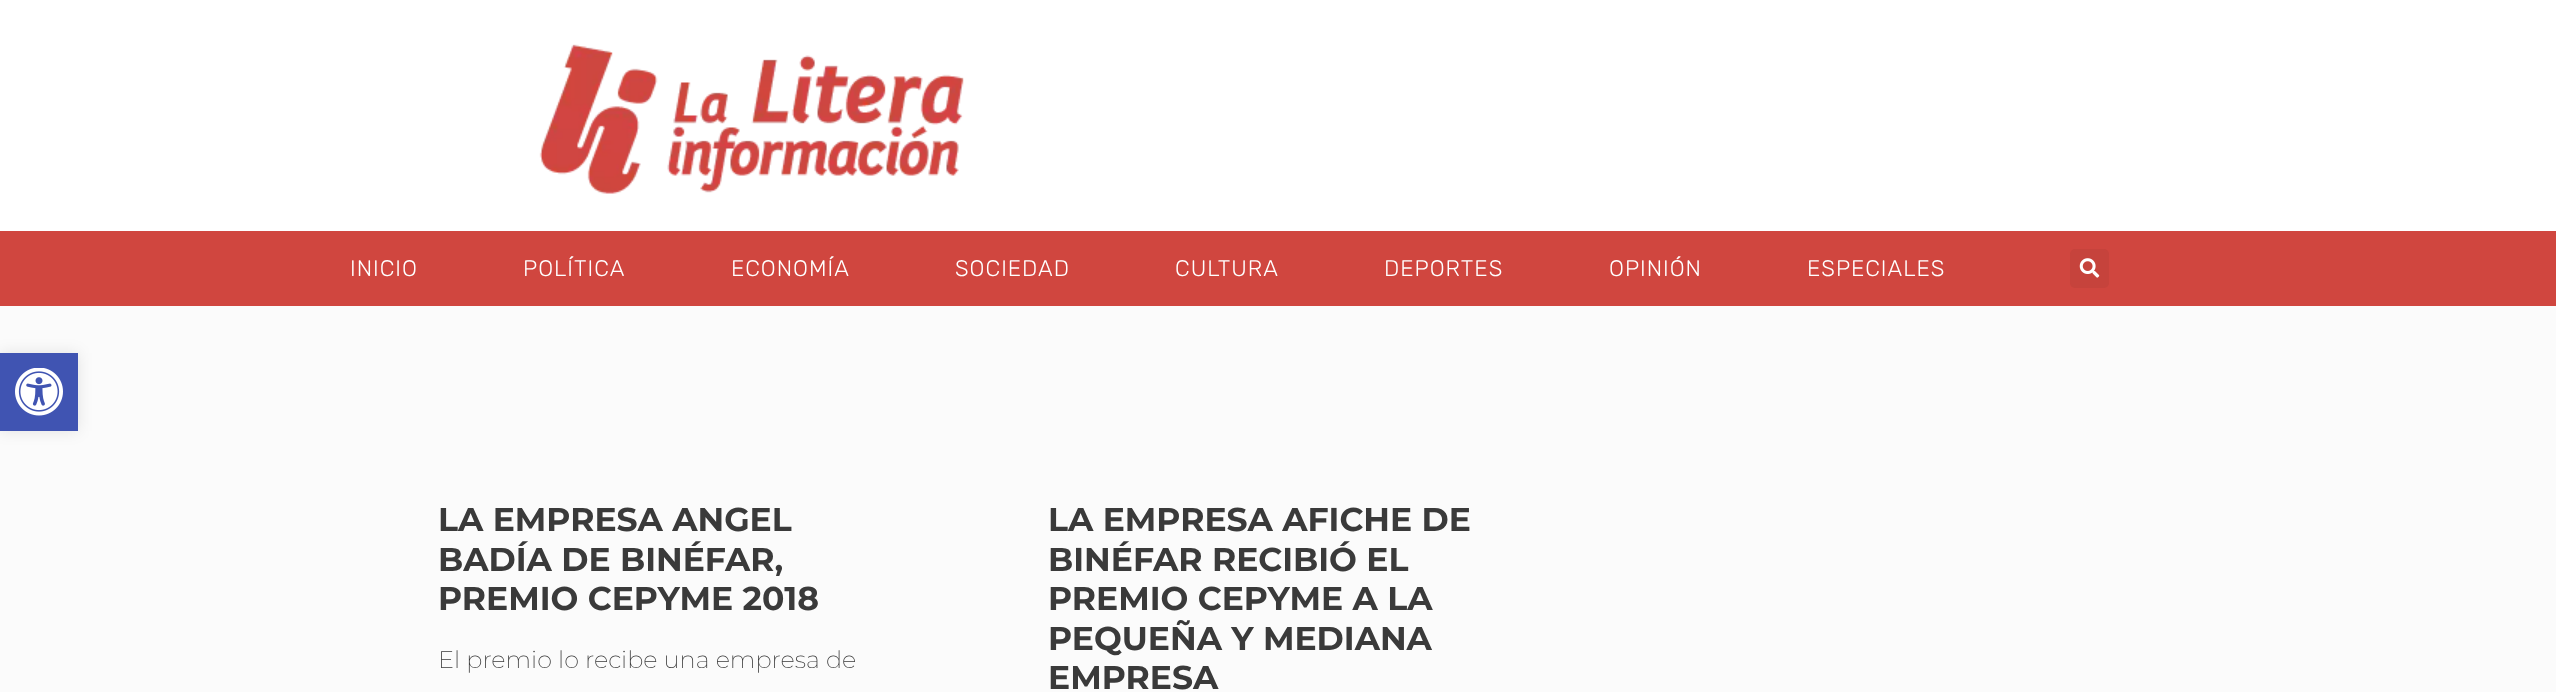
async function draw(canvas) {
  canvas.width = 2556;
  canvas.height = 692;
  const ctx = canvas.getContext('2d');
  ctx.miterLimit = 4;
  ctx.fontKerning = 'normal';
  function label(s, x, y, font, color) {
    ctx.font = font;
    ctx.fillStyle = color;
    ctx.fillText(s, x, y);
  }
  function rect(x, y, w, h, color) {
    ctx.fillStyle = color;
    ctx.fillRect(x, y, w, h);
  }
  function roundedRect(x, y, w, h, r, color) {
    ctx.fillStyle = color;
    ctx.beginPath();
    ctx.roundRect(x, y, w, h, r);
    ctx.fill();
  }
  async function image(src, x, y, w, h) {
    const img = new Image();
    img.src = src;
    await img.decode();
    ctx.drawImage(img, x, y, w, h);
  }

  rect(0, 0, 2556, 692, '#fff');
  await image('assets/img1.png', 539, 44, 425, 150);
  rect(0, 231, 2556, 75, '#d0463f');
  ctx.letterSpacing = '1px';
  label('INICIO', 350, 276, '300 22.5px Rubik', '#fff');
  label('POLÍTICA', 523, 276, '300 22.5px Rubik', '#fff');
  label('ECONOMÍA', 731, 276, '300 22.5px Rubik', '#fff');
  label('SOCIEDAD', 955, 276, '300 22.5px Rubik', '#fff');
  label('CULTURA', 1175, 276, '300 22.5px Rubik', '#fff');
  label('DEPORTES', 1384, 276, '300 22.5px Rubik', '#fff');
  label('OPINIÓN', 1609, 276, '300 22.5px Rubik', '#fff');
  label('ESPECIALES', 1807, 276, '300 22.5px Rubik', '#fff');
  roundedRect(2070, 249, 39, 39, 5, '#c6433c');
  await image('assets/img2.png', 2079, 258, 21, 20);
  rect(0, 306, 2556, 386, '#fbfbfb');
  ctx.fillStyle = '#0000001a';
  ctx.filter = 'blur(7.5px)';
  ctx.beginPath();
  ctx.rect(0, 353, 78, 78);
  ctx.fill();
  ctx.filter = 'none';
  rect(0, 353, 78, 78, '#4054b2');
  await image('assets/img3.png', 15, 368, 48, 48);
  ctx.letterSpacing = '0px';
  label('LA EMPRESA ANGEL', 438, 531, 'bold 33px Montserrat', '#3a3a3a');
  label('BADÍA DE BINÉFAR,', 438, 571, 'bold 33px Montserrat', '#3a3a3a');
  label('PREMIO CEPYME 2018', 438, 610, 'bold 33px Montserrat', '#3a3a3a');
  label('El premio lo recibe una empresa de', 438, 668, '200 24px Montserrat', '#3a3a3a');
  label('LA EMPRESA AFICHE DE', 1048, 531, 'bold 33px Montserrat', '#3a3a3a');
  label('BINÉFAR RECIBIÓ EL', 1048, 571, 'bold 33px Montserrat', '#3a3a3a');
  label('PREMIO CEPYME A LA', 1048, 610, 'bold 33px Montserrat', '#3a3a3a');
  label('PEQUEÑA Y MEDIANA', 1048, 650, 'bold 33px Montserrat', '#3a3a3a');
  label('EMPRESA', 1048, 689, 'bold 33px Montserrat', '#3a3a3a');
}

draw(document.querySelector('canvas'));
